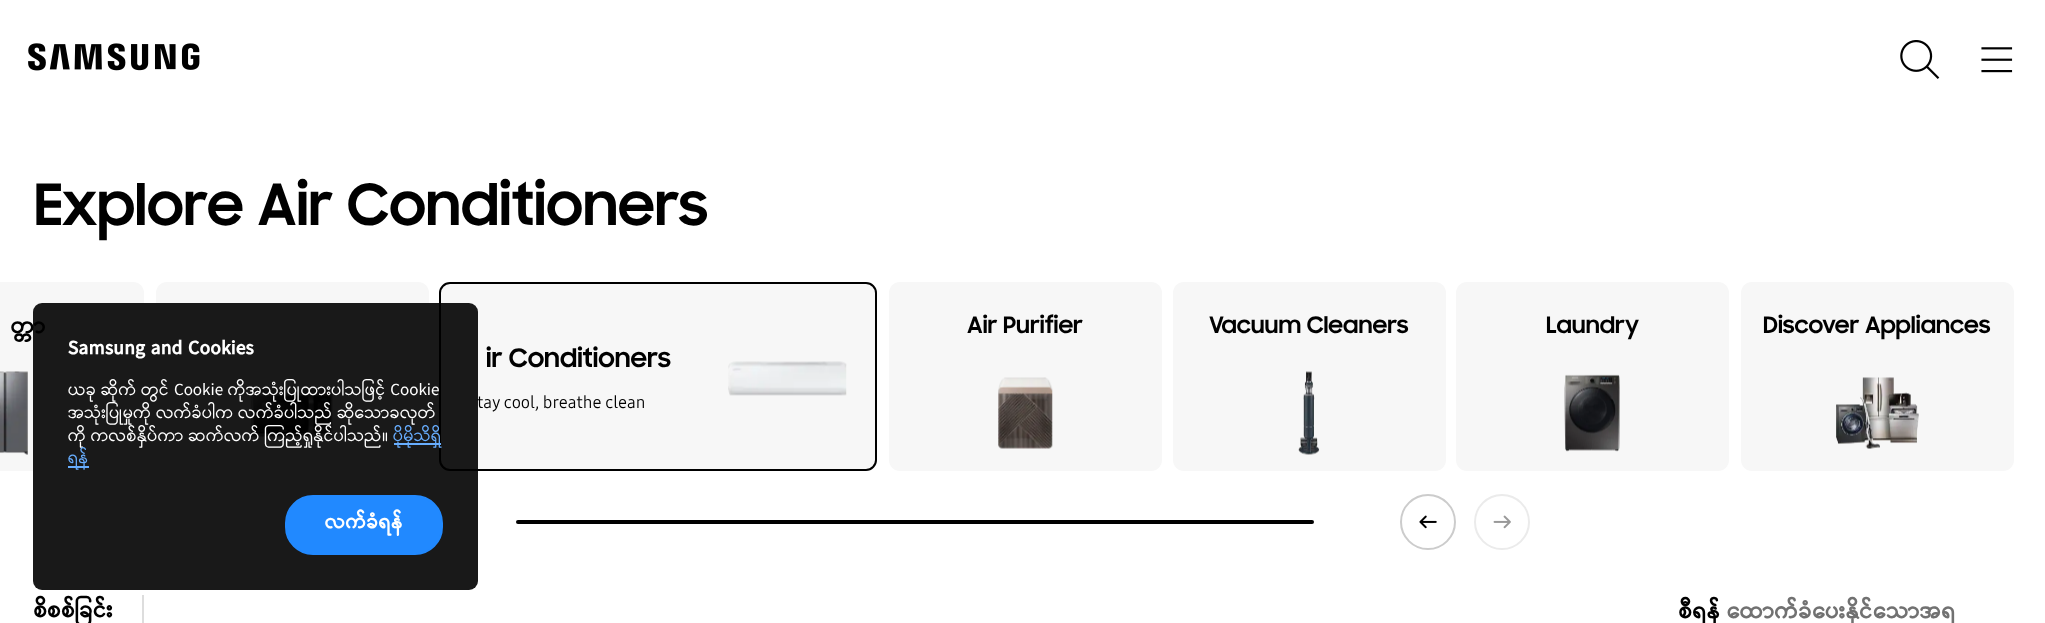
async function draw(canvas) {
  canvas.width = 2045;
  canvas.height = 623;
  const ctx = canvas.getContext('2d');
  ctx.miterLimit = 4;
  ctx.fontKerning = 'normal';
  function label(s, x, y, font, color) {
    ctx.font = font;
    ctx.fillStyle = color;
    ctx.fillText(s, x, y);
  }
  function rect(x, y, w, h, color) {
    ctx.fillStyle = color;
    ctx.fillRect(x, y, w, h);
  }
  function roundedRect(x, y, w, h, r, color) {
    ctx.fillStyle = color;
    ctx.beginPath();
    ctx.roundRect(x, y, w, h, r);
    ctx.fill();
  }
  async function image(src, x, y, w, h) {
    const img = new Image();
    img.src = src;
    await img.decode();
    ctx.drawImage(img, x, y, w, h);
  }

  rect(0, 0, 2045, 623, '#fff');
  await image('assets/img1.png', 28, 43, 172, 28);
  await image('assets/img2.png', 1900, 40, 40, 39);
  await image('assets/img3.png', 1981, 47, 32, 26);
  label('Explore Air Conditioners', 34, 225, 'bold 56.75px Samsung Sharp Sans', '#000');
  ctx.fillStyle = '#f7f7f7';
  ctx.beginPath();
  ctx.roundRect(0, 282, 144, 189, [0, 11, 11, 0]);
  ctx.fill();
  label('တ္တာ', 11, 333, 'bold 22.75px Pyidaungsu', '#000');
  await image('assets/img4.png', 0, 371, 28, 84);
  roundedRect(156, 282, 273, 189, 11, '#f7f7f7');
  await image('assets/img5.png', 250, 389, 83, 49);
  roundedRect(889, 282, 273, 189, 11, '#f7f7f7');
  label('Air Purifier', 967, 333, 'bold 22.75px Samsung Sharp Sans', '#000');
  await image('assets/img6.png', 998, 377, 55, 72);
  roundedRect(1173, 282, 273, 189, 11, '#f7f7f7');
  label('Vacuum Cleaners', 1209, 333, 'bold 22.75px Samsung Sharp Sans', '#000');
  await image('assets/img7.png', 1298, 371, 22, 84);
  roundedRect(1456, 282, 273, 189, 11, '#f7f7f7');
  label('Laundry', 1546, 333, 'bold 22.75px Samsung Sharp Sans', '#000');
  await image('assets/img8.png', 1564, 374, 56, 78);
  roundedRect(1741, 282, 273, 189, 11, '#f7f7f7');
  label('Discover Appliances', 1763, 333, 'bold 22.75px Samsung Sharp Sans', '#000');
  await image('assets/img9.png', 1836, 377, 83, 72);
  ctx.fillStyle = '#f7f7f7';
  ctx.beginPath();
  ctx.roundRect(440, 283, 436, 187, 10);
  ctx.fill();
  ctx.strokeStyle = '#000';
  ctx.lineWidth = 2;
  ctx.stroke();
  label('ir Conditioners', 486, 367, 'bold 25.5px Samsung Sharp Sans', '#000');
  label('tay cool, breathe clean', 477, 408, '17.05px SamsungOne', '#000');
  await image('assets/img10.png', 728, 361, 119, 35);
  roundedRect(516, 520, 798, 4, 2, '#000');
  ctx.beginPath();
  ctx.arc(1428, 522, 27, 0, 2 * Math.PI);
  ctx.strokeStyle = '#ccc';
  ctx.stroke();
  await image('assets/img11.png', 1419, 515, 18, 14);
  ctx.beginPath();
  ctx.arc(1502, 522, 27, 0, 2 * Math.PI);
  ctx.strokeStyle = '#ebebeb';
  ctx.stroke();
  await image('assets/img12.png', 1493, 515, 18, 14);
  label('စိစစ်ခြင်း', 34, 617, 'bold 22.75px Pyidaungsu', '#000');
  rect(142, 595, 2, 28, '#ddd');
  label('စီရန်', 1679, 618, 'bold 22.75px Pyidaungsu', '#000');
  label('ထောက်ခံပေးနိုင်သောအရ', 1727, 618, 'bold 22.75px Pyidaungsu', '#717171');
  roundedRect(33, 303, 445, 287, 9, '#000000e6');
  label('Samsung and Cookies', 68, 354, 'bold 19.9px Pyidaungsu', '#fff');
  label('ယခု ဆိုက် တွင် Cookie ကိုအသုံးပြုထားပါသဖြင့် Cookie', 68, 395, '17.05px Pyidaungsu', '#fff');
  label('အသုံးပြုမှုကို လက်ခံပါက လက်ခံပါသည် ဆိုသောခလုတ်', 68, 418, '17.05px Pyidaungsu', '#fff');
  label('ကို ကလစ်နှိပ်ကာ ဆက်လက် ကြည့်ရှုနိုင်ပါသည်။', 68, 441, '17.05px Pyidaungsu', '#fff');
  rect(394, 443, 47, 2, '#68aeff');
  label('ပိုမိုသိရှိ', 393, 441, '17.05px Pyidaungsu', '#68aeff');
  rect(68, 466, 21, 2, '#68aeff');
  label('ရန်', 68, 463, '17.05px Pyidaungsu', '#68aeff');
  ctx.fillStyle = '#2189ff';
  ctx.beginPath();
  ctx.roundRect(286, 496, 156, 58, 27);
  ctx.fill();
  ctx.strokeStyle = '#2189ff';
  ctx.stroke();
  label('လက်ခံရန်', 325, 528, 'bold 19.9px Pyidaungsu', '#fff');
}

draw(document.querySelector('canvas'));
